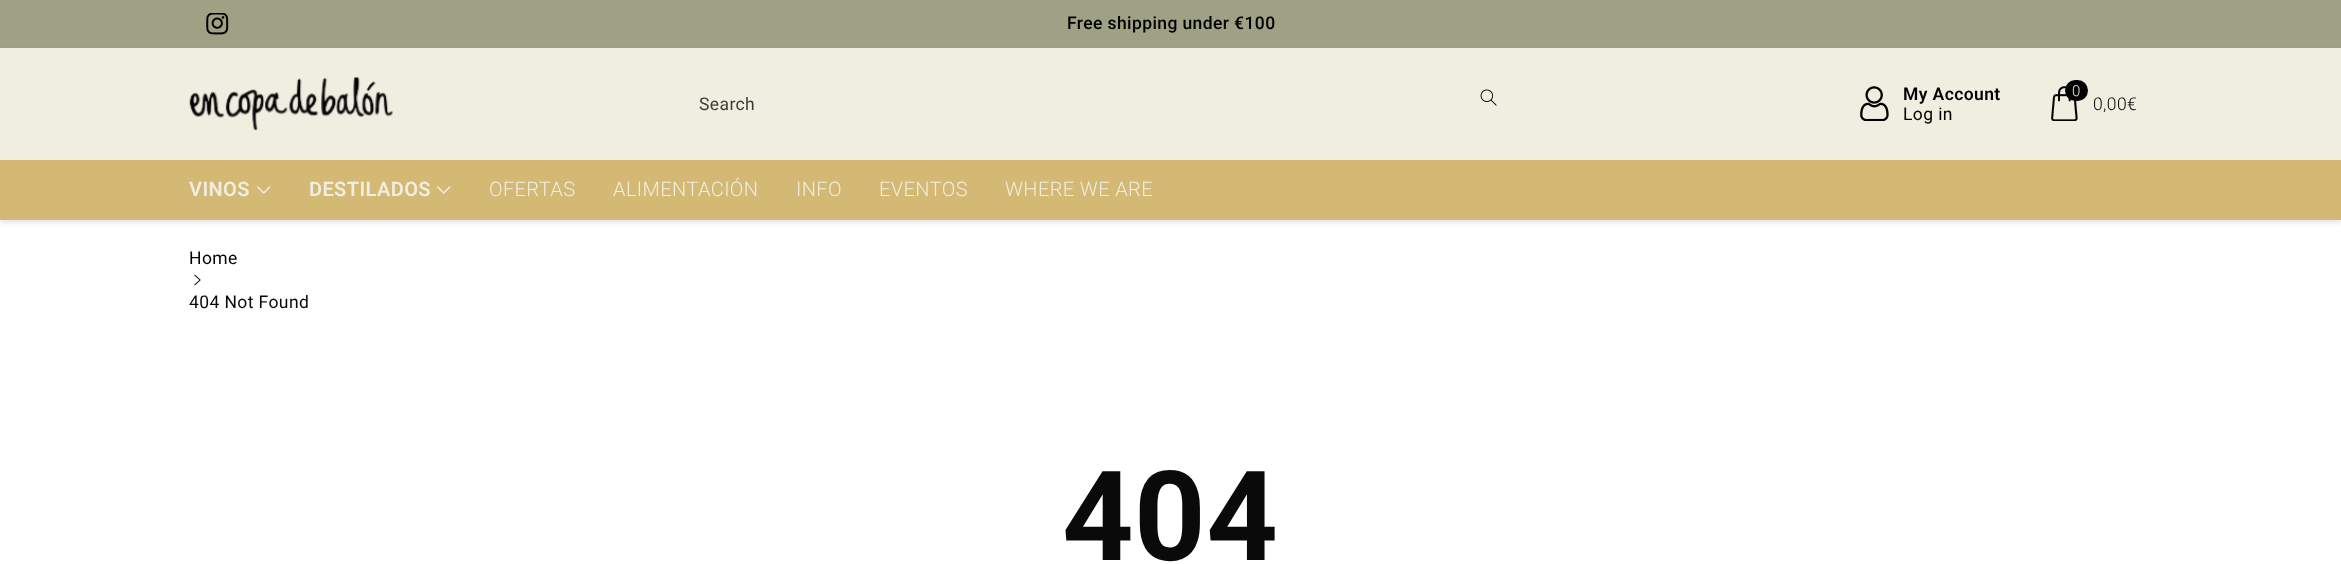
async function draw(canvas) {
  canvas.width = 2341;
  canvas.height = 564;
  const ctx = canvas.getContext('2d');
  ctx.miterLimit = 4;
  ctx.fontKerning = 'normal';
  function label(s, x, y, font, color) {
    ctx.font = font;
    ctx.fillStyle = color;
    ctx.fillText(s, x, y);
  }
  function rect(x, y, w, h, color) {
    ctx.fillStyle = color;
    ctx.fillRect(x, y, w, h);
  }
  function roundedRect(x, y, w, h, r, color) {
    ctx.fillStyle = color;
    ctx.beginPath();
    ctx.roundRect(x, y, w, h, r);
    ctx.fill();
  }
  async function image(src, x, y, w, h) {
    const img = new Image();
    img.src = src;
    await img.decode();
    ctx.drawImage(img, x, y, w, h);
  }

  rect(0, 0, 2341, 564, '#fff');
  rect(0, 0, 2341, 48, '#9fa185');
  await image('assets/img1.png', 206, 13, 23, 22);
  ctx.letterSpacing = '0.4px';
  label('Free shipping under €100', 1067, 29, '500 17.5px Roboto', '#000');
  ctx.fillStyle = '#0000001a';
  ctx.filter = 'blur(2.5px)';
  ctx.beginPath();
  ctx.rect(0, 50, 2341, 173);
  ctx.fill();
  ctx.filter = 'none';
  rect(0, 48, 2341, 112, '#f0ede1');
  await image('assets/img2.png', 189, 77, 204, 53);
  label('Search', 699, 110, '17.5px Roboto', '#3c3b38');
  await image('assets/img3.png', 1480, 89, 17, 17);
  await image('assets/img4.png', 1860, 86, 29, 35);
  label('My Account', 1903, 100, '600 17.5px Roboto', '#000');
  label('Log in', 1903, 120, '17.5px Roboto', '#000');
  await image('assets/img5.png', 2051, 86, 27, 35);
  roundedRect(2065, 80, 23, 21, 10.5, '#000');
  label('0', 2072, 96, '300 15px Roboto', '#f0ede1');
  label('0,00€', 2093, 110, '300 17.5px Roboto', '#000');
  rect(0, 160, 2341, 60, '#d4b974');
  label('VINOS', 189, 196, '600 20px Roboto', '#f0ede1');
  await image('assets/img6.png', 257, 186, 14, 8);
  label('DESTILADOS', 309, 196, '600 20px Roboto', '#f0ede1');
  await image('assets/img6.png', 437, 186, 14, 8);
  label('OFERTAS', 489, 196, '300 20px Roboto', '#f0ede1');
  label('ALIMENTACIÓN', 613, 196, '300 20px Roboto', '#f0ede1');
  label('INFO', 796, 196, '300 20px Roboto', '#f0ede1');
  label('EVENTOS', 879, 196, '300 20px Roboto', '#f0ede1');
  label('WHERE WE ARE', 1005, 196, '300 20px Roboto', '#f0ede1');
  label('Home', 189, 264, '17.5px Roboto', '#000');
  await image('assets/img7.png', 194, 274, 7, 12);
  label('404 Not Found', 189, 308, '17.5px Roboto', '#0a0a0a');
  label('404', 1062, 560, 'bold 125px Roboto', '#0a0a0a');
}

draw(document.querySelector('canvas'));
